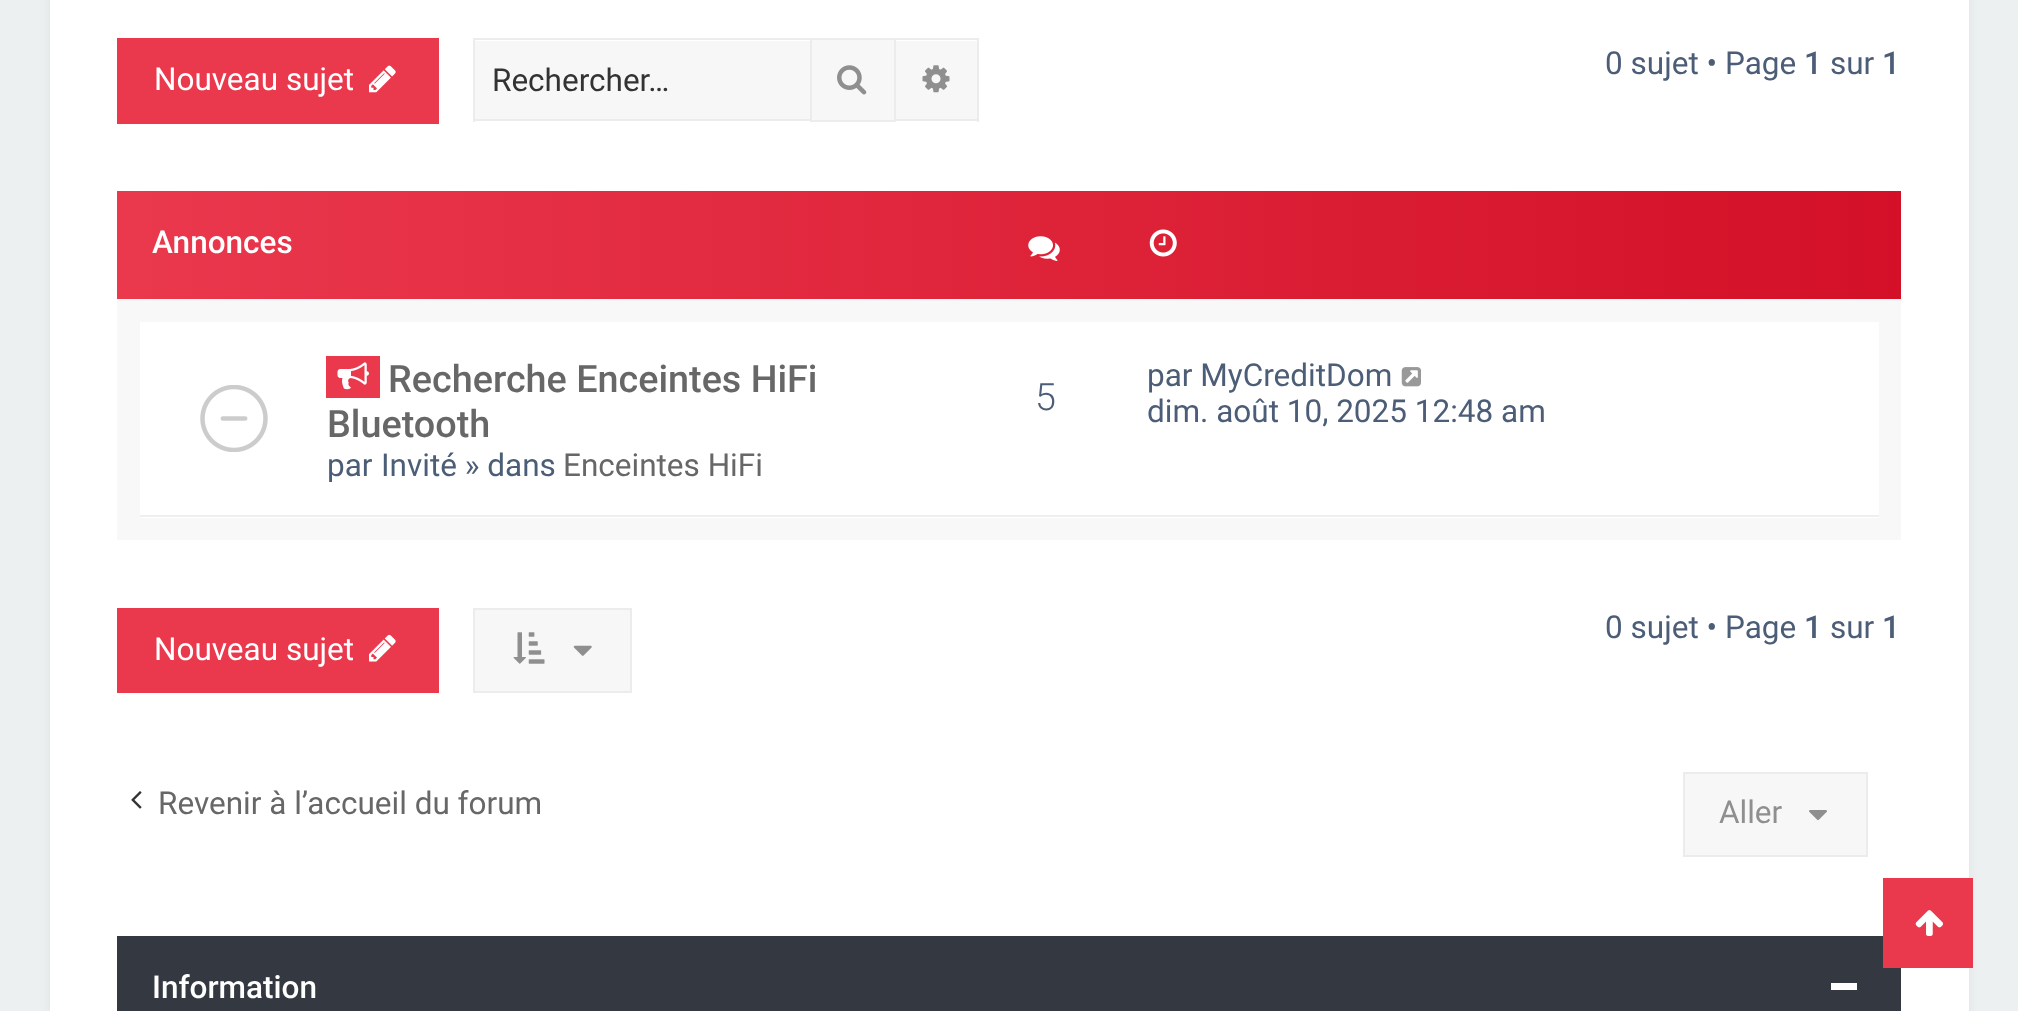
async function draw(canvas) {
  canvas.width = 2018;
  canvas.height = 1011;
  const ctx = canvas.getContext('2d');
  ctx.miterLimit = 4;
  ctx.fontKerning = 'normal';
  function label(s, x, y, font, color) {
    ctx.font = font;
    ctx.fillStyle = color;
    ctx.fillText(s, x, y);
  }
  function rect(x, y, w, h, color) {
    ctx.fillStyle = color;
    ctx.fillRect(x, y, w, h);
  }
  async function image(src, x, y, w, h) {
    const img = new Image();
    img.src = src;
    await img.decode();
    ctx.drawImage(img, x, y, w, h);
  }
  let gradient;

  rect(0, 0, 2018, 1011, '#ecf0f1');
  ctx.fillStyle = '#0000000d';
  ctx.filter = 'blur(5.5px)';
  ctx.beginPath();
  ctx.rect(50, -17, 1919, 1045);
  ctx.fill();
  ctx.filter = 'none';
  rect(50, 0, 1919, 1011, '#fff');
  rect(117, 38, 322, 86, '#ea384d');
  label('Nouveau sujet', 154, 90, '31.5px Roboto', '#fff');
  await image('assets/img1.png', 369, 65, 27, 28);
  rect(475, 41, 335, 78, '#f7f7f7');
  rect(473, 38, 337, 2, '#edecec');
  rect(473, 119, 337, 2, '#edecec');
  rect(473, 38, 2, 84, '#edecec');
  label('Rechercher…', 492, 91, '31.5px Roboto', '#333');
  ctx.fillStyle = '#f7f7f7';
  ctx.beginPath();
  ctx.rect(811, 39, 84, 82);
  ctx.fill();
  ctx.strokeStyle = '#edecec';
  ctx.lineWidth = 2;
  ctx.stroke();
  await image('assets/img2.png', 837, 65, 30, 30);
  rect(896, 41, 81, 78, '#f7f7f7');
  rect(896, 38, 83, 2, '#edecec');
  rect(977, 38, 2, 84, '#edecec');
  rect(896, 119, 83, 2, '#edecec');
  await image('assets/img3.png', 922, 65, 28, 28);
  label('0 sujet • Page', 1605, 74, '31.5px Roboto', '#4c5d77');
  label('1', 1804, 74, '500 31.5px Roboto', '#4c5d77');
  label('sur', 1830, 74, '31.5px Roboto', '#4c5d77');
  label('1', 1882, 74, '500 31.5px Roboto', '#4c5d77');
  rect(117, 299, 1784, 241, '#f8f8f8');
  gradient = ctx.createLinearGradient(117, 245, 1901, 245);
  gradient.addColorStop(0, '#ea384d');
  gradient.addColorStop(1, '#d31027');
  ctx.fillStyle = gradient;
  ctx.fillRect(117, 191, 1784, 108);
  label('Annonces', 152, 253, '500 31.5px Roboto', '#fff');
  await image('assets/img4.png', 1028, 236, 32, 25);
  await image('assets/img5.png', 1149, 229, 28, 28);
  rect(140, 322, 1739, 196, '#fff');
  rect(140, 515, 1739, 2, '#ecf0f1');
  await image('assets/img6.png', 200, 385, 68, 67);
  rect(326, 356, 54, 42, '#ea384d');
  await image('assets/img7.png', 337, 362, 32, 28);
  label('Recherche Enceintes HiFi', 388, 392, '500 37.75px Roboto', '#676767');
  label('Bluetooth', 327, 437, '500 37.75px Roboto', '#676767');
  ctx.save();
  ctx.beginPath();
  ctx.rect(173, 356, 1672, 126);
  ctx.clip();
  label('par', 327, 476, '31.5px Roboto', '#4c5d77');
  ctx.restore();
  label('Invité » dans', 381, 476, '31.5px Roboto', '#4c5d77');
  label('Enceintes HiFi', 563, 476, '31.5px Roboto', '#676767');
  label('5', 1035, 410, '300 37.75px Roboto', '#4c5d77');
  label('par MyCreditDom', 1147, 386, '31.5px Roboto', '#4c5d77');
  await image('assets/img8.png', 1401, 367, 20, 20);
  label('dim. août 10, 2025 12:48 am', 1147, 422, '31.5px Roboto', '#4c5d77');
  ctx.fillStyle = '#f7f7f7';
  ctx.beginPath();
  ctx.rect(474, 609, 157, 83);
  ctx.fill();
  ctx.stroke();
  await image('assets/img9.png', 513, 632, 32, 32);
  await image('assets/img10.png', 573, 645, 19, 11);
  label('0 sujet • Page', 1605, 638, '31.5px Roboto', '#4c5d77');
  label('1', 1804, 638, '500 31.5px Roboto', '#4c5d77');
  label('sur', 1830, 638, '31.5px Roboto', '#4c5d77');
  label('1', 1882, 638, '500 31.5px Roboto', '#4c5d77');
  rect(117, 608, 322, 85, '#ea384d');
  label('Nouveau sujet', 154, 660, '31.5px Roboto', '#fff');
  await image('assets/img11.png', 369, 634, 27, 28);
  await image('assets/img12.png', 131, 791, 11, 18);
  label('Revenir à l’accueil du forum', 158, 814, '31.5px Roboto', '#676767');
  ctx.fillStyle = '#f7f7f7';
  ctx.beginPath();
  ctx.rect(1684, 773, 183, 83);
  ctx.fill();
  ctx.stroke();
  label('Aller', 1719, 823, '31.5px Roboto', '#8f8f8f');
  await image('assets/img13.png', 1809, 810, 18, 11);
  rect(117, 936, 1784, 75, '#343840');
  label('Information', 152, 998, '500 31.5px Roboto', '#fff');
  rect(1831, 983, 26, 7, '#fff');
  rect(1883, 878, 90, 90, '#ea384d');
  await image('assets/img14.png', 1915, 910, 29, 26);
}

draw(document.querySelector('canvas'));
